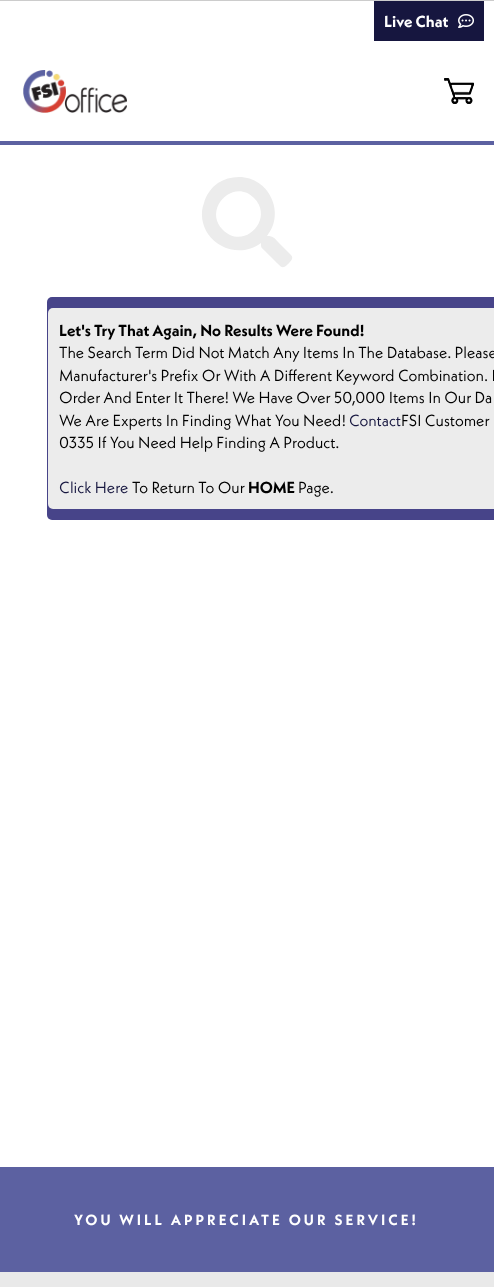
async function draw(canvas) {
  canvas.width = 494;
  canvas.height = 1287;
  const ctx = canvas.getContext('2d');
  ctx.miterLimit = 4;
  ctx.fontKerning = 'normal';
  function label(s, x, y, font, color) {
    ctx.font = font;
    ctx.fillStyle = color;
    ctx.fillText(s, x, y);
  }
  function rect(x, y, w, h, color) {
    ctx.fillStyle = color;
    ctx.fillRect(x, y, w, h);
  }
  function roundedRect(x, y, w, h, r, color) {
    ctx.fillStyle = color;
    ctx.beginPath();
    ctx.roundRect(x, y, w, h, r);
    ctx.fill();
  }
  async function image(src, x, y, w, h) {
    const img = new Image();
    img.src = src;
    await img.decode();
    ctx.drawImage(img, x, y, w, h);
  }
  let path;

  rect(0, 0, 494, 1287, '#fff');
  rect(0, 141, 494, 4, '#5c61a1');
  rect(0, 0, 494, 1, '#ccc');
  rect(374, 1, 110, 40, '#16163f');
  label('Live Chat', 384, 27, 'bold 16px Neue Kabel', '#fff');
  await image('assets/img1.png', 458, 14, 16, 14);
  await image('assets/img2.png', 23, 70, 104, 43);
  await image('assets/img3.png', 444, 78, 30, 26);
  ctx.fillStyle = '#ececec';
  path = new Path2D('M291 255C294 258 291 261 288 264C283 269 282 268 277 263L265 251C261 247 261 248 261 243C244 256 220 251 208 234C202 225 200 213 204 203C206 195 211 188 218 183C224 179 231 177 239 177C269 177 286 213 267 236C274 236 274 238 279 243ZM223 230C244 251 275 219 254 198C234 177 202 209 223 230Z');
  ctx.fill(path);
  roundedRect(47, 297, 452, 223, 5, '#474489');
  roundedRect(48, 308, 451, 201, 5, '#ececec');
  label('Let\'s Try That Again, No Results Were Found!', 59, 336, 'bold 16px Neue Kabel', '#000');
  label('The Search Term Did Not Match Any Items In The Database. Please', 59, 358, '16px Neue Kabel', '#000');
  label('Manufacturer\'s Prefix Or With A Different Keyword Combination. I', 59, 381, '16px Neue Kabel', '#000');
  label('Order And Enter It There! We Have Over 50,000 Items In Our Da', 59, 403, '16px Neue Kabel', '#000');
  label('We Are Experts In Finding What You Need!', 59, 426, '16px Neue Kabel', '#000');
  label('Contact', 349, 426, '16px Neue Kabel', '#16163f');
  label('FSI Customer', 401, 426, '16px Neue Kabel', '#000');
  label('0335 If You Need Help Finding A Product.', 59, 448, '16px Neue Kabel', '#000');
  label('Click Here', 59, 493, '16px Neue Kabel', '#16163f');
  label('To Return To Our', 132, 493, '16px Neue Kabel', '#000');
  label('HOME', 248, 493, 'bold 16px Neue Kabel', '#000');
  label('Page.', 298, 493, '16px Neue Kabel', '#000');
  rect(0, 1272, 494, 15, '#e9e9e9');
  rect(0, 1167, 494, 105, '#5c61a1');
  ctx.letterSpacing = '3px';
  label('YOU WILL APPRECIATE OUR SERVICE!', 74, 1225, 'bold 14.8px Neue Kabel', '#fff');
}

draw(document.querySelector('canvas'));
